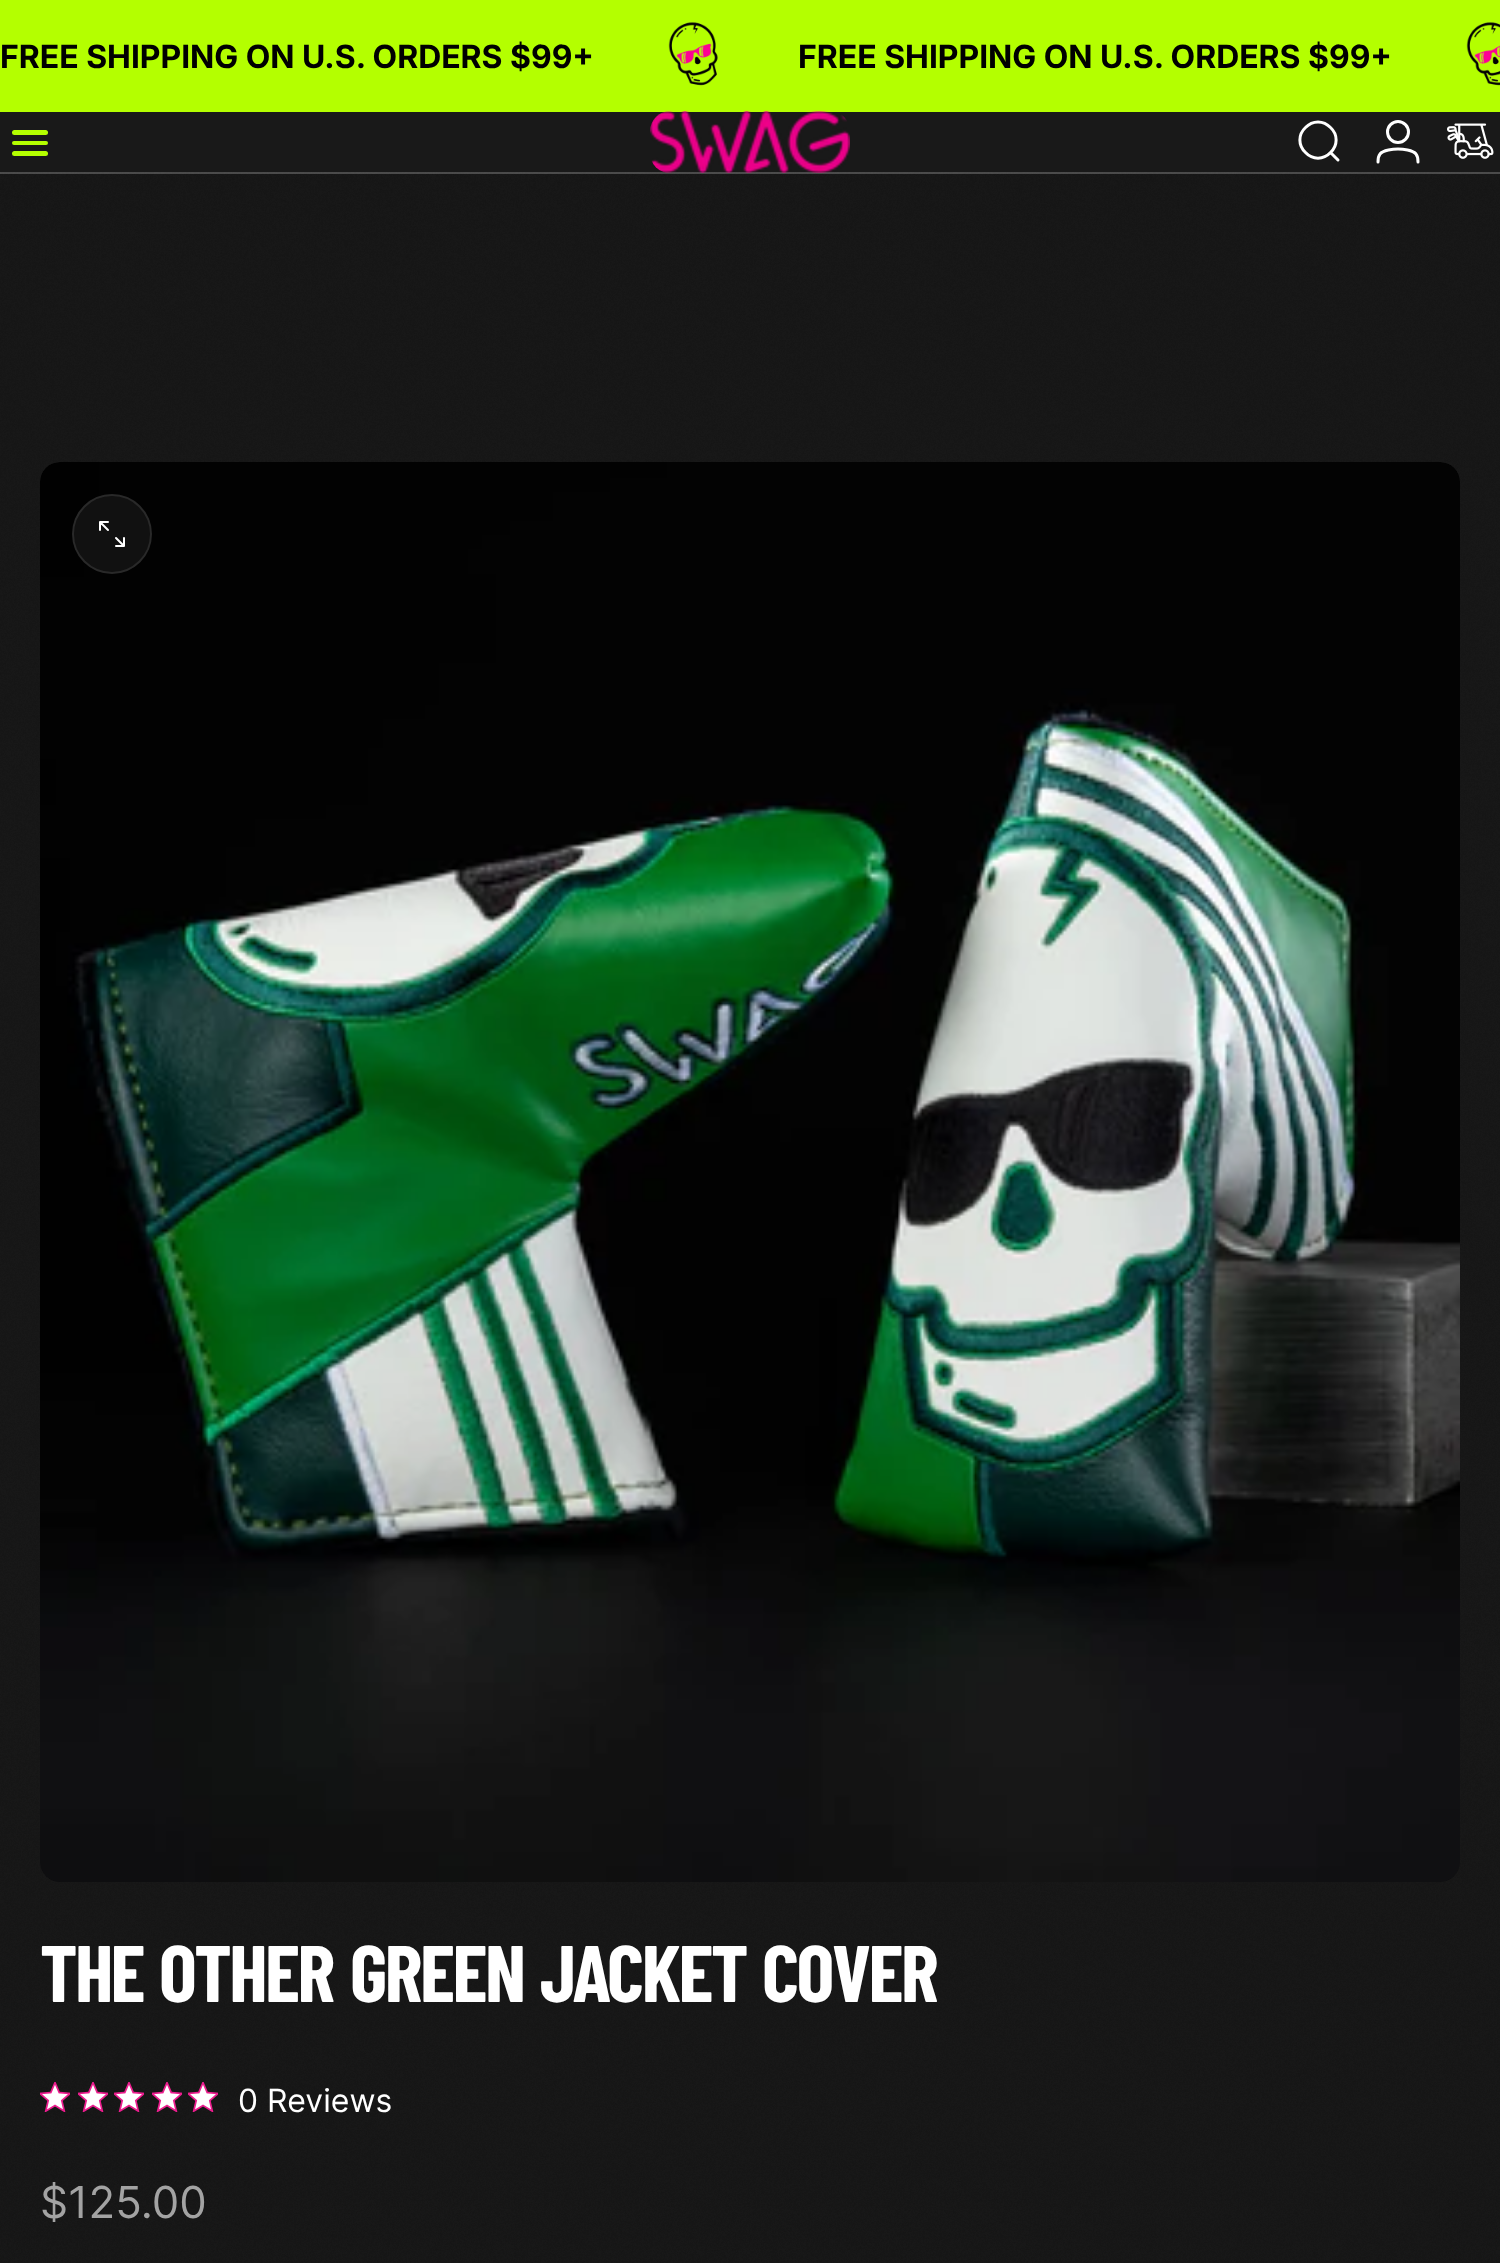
async function draw(canvas) {
  canvas.width = 1500;
  canvas.height = 2263;
  const ctx = canvas.getContext('2d');
  ctx.miterLimit = 4;
  ctx.fontKerning = 'normal';
  function label(s, x, y, font, color) {
    ctx.font = font;
    ctx.fillStyle = color;
    ctx.fillText(s, x, y);
  }
  function rect(x, y, w, h, color) {
    ctx.fillStyle = color;
    ctx.fillRect(x, y, w, h);
  }
  function roundedRect(x, y, w, h, r, color) {
    ctx.fillStyle = color;
    ctx.beginPath();
    ctx.roundRect(x, y, w, h, r);
    ctx.fill();
  }
  async function image(src, x, y, w, h) {
    const img = new Image();
    img.src = src;
    await img.decode();
    ctx.drawImage(img, x, y, w, h);
  }
  let path;

  rect(0, 0, 1500, 2263, '#191919');
  await image('assets/img1.png', 0, 172, 1500, 2091);
  rect(0, 0, 1500, 112, '#b4ff00');
  label('FREE SHIPPING ON U.S. ORDERS $99+', 0, 68, 'bold 32px Inter', '#000');
  await image('assets/img2.png', 668, 22, 50, 64);
  label('FREE SHIPPING ON U.S. ORDERS $99+', 798, 68, 'bold 32px Inter', '#000');
  await image('assets/img3.png', 1466, 22, 34, 64);
  rect(0, 172, 1500, 2, '#ffffff1f');
  rect(0, 172, 1500, 2, '#ffffff1f');
  roundedRect(12, 130, 36, 5, 2.5, '#b4ff00');
  roundedRect(12, 141, 36, 4, 2, '#b4ff00');
  roundedRect(12, 151, 36, 5, 2.5, '#b4ff00');
  await image('assets/img4.png', 650, 111, 200, 62);
  path = new Path2D('M1338 160L1330.5 152.5M1330.5 152.5C1338 145.5 1338 134.5 1330.5 127.5C1323.5 120 1312.5 120 1305.5 127.5C1298 134.5 1298 145.5 1305.5 152.5C1312.5 160 1323.5 160 1330.5 152.5Z');
  ctx.strokeStyle = '#fff';
  ctx.lineWidth = 3;
  ctx.lineCap = 'round';
  ctx.stroke(path);
  ctx.beginPath();
  ctx.arc(1398, 132, 10.5, 0, 2 * Math.PI);
  ctx.stroke();
  path = new Path2D('M1398 149C1402.5 149 1413 150 1416 154C1418 156.5 1418 159 1418 162M1398 149C1393.5 149 1383 150 1380 154C1378 156.5 1378 159 1378 162');
  ctx.stroke(path);
  await image('assets/img5.png', 1447, 123, 47, 36);
  await image('assets/img6.png', 40, 462, 1420, 1420);
  ctx.fillStyle = '#111';
  ctx.beginPath();
  ctx.arc(112, 534, 40, 0, 2 * Math.PI);
  ctx.fill();
  ctx.beginPath();
  ctx.arc(112, 534, 39, 0, 2 * Math.PI);
  ctx.strokeStyle = '#ffffff1a';
  ctx.lineWidth = 2;
  ctx.stroke();
  path = new Path2D('M100 522V530M100 522H108M100 522L108 530M124 546V538M124 546H116M124 546L116 538');
  ctx.strokeStyle = '#fff';
  ctx.lineJoin = 'round';
  ctx.stroke(path);
  ctx.letterSpacing = '-2.5px';
  label('THE', 40, 2002, 'bold 80px Barlow Condensed', '#fff');
  label('OTHER', 159, 2002, 'bold 80px Barlow Condensed', '#fff');
  label('GREEN', 350, 2002, 'bold 80px Barlow Condensed', '#fff');
  label('JACKET', 540, 2002, 'bold 80px Barlow Condensed', '#fff');
  label('COVER', 762, 2002, 'bold 80px Barlow Condensed', '#fff');
  await image('assets/img7.png', 40, 2082, 30, 30);
  await image('assets/img8.png', 78, 2082, 30, 30);
  await image('assets/img9.png', 114, 2082, 30, 30);
  await image('assets/img10.png', 152, 2082, 30, 30);
  await image('assets/img11.png', 188, 2082, 30, 30);
  ctx.letterSpacing = '0px';
  label('0 Reviews', 238, 2112, '32px Inter', '#fff');
  label('$125.00', 40, 2218, '44px Inter', '#a3a3a3');
}

draw(document.querySelector('canvas'));
